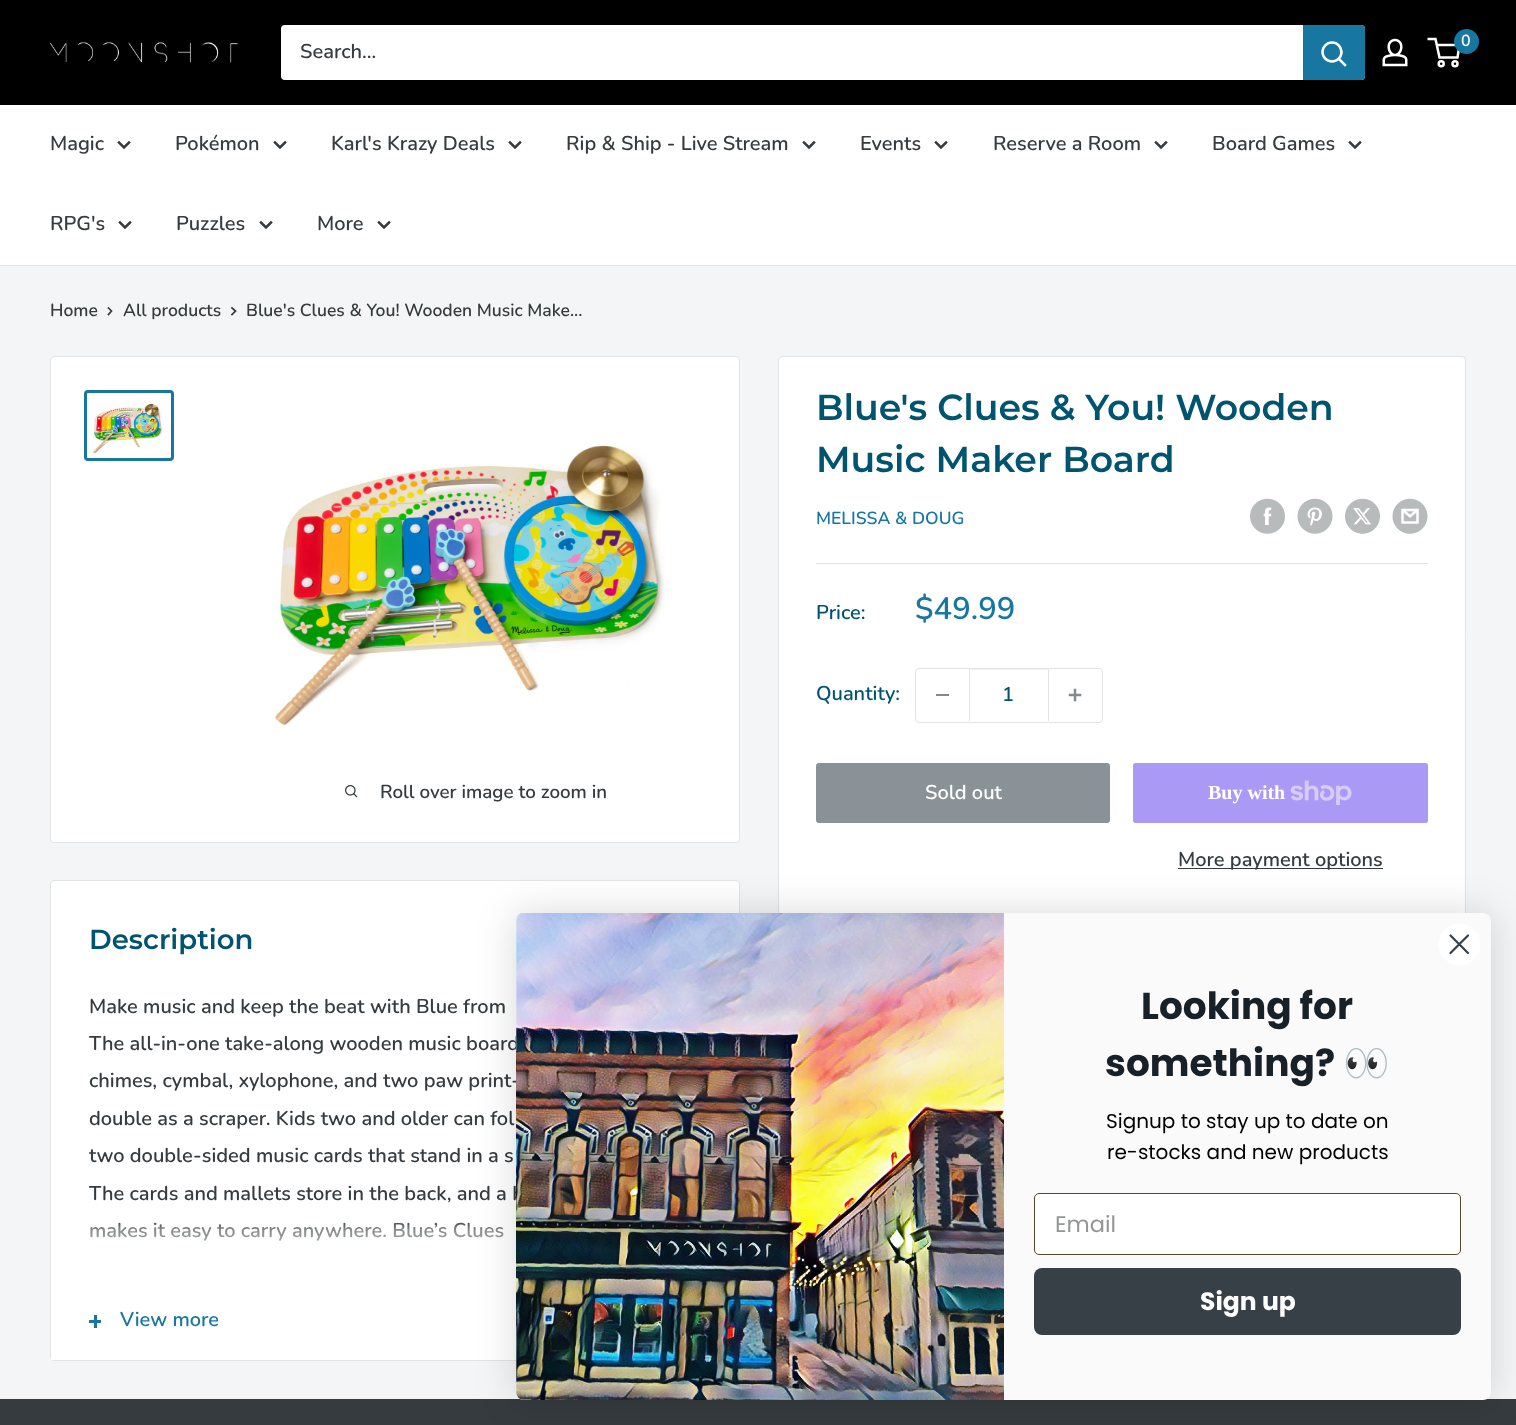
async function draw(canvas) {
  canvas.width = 1516;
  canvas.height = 1425;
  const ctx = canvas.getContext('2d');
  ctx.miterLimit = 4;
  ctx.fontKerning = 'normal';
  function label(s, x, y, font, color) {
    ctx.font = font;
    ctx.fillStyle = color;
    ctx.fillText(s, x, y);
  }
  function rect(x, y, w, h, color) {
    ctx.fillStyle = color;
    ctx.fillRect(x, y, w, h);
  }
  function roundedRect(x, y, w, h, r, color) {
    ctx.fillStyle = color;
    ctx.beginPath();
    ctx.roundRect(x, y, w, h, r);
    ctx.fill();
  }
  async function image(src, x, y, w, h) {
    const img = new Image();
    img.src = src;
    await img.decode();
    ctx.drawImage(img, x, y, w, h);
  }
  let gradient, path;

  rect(0, 0, 1516, 1425, '#f3f5f6');
  rect(0, 0, 1516, 105, '#000');
  await image('assets/img1.png', 1382, 38, 26, 29);
  ctx.beginPath();
  ctx.arc(1441.2, 63.8, 2.5, 0, 2 * Math.PI);
  ctx.strokeStyle = '#fff';
  ctx.lineWidth = 2.5;
  ctx.stroke();
  ctx.beginPath();
  ctx.arc(1455, 63.8, 2.5, 0, 2 * Math.PI);
  ctx.stroke();
  path = new Path2D('M1436.5 45H1459.5L1457.5 57.5H1439.5L1435.5 39H1427.5');
  ctx.stroke(path);
  ctx.fillStyle = '#1777a1';
  ctx.beginPath();
  ctx.arc(1466.5, 41.5, 12.5, 0, 2 * Math.PI);
  ctx.fill();
  label('0', 1461, 46, '600 16px Nunito', '#fff');
  await image('assets/img2.png', 50, 42, 188, 21);
  roundedRect(281, 25, 1084, 55, 4, '#fff');
  label('Search...', 300, 58, '600 20px Nunito', '#353b3e');
  ctx.fillStyle = '#1777a1';
  ctx.beginPath();
  ctx.roundRect(1303, 25, 62, 55, [0, 4, 4, 0]);
  ctx.fill();
  path = new Path2D('M1345 65L1339 59');
  ctx.lineCap = 'square';
  ctx.stroke(path);
  ctx.beginPath();
  ctx.arc(1332, 52, 9.5, 0, 2 * Math.PI);
  ctx.stroke();
  rect(0, 105, 1516, 160, '#fff');
  rect(0, 265, 1516, 1, '#e1e3e4');
  label('Magic', 50, 150, '600 20px Nunito', '#353b3e');
  path = new Path2D('M129 142.5L124 147.5L119 142.5');
  ctx.strokeStyle = '#353b3e';
  ctx.stroke(path);
  label('Pokémon', 175, 150, '600 20px Nunito', '#353b3e');
  path = new Path2D('M285 142.5L280 147.5L275 142.5');
  ctx.stroke(path);
  label('Karl\'s Krazy Deals', 331, 150, '600 20px Nunito', '#353b3e');
  path = new Path2D('M520 142.5L515 147.5L510 142.5');
  ctx.stroke(path);
  label('Rip & Ship - Live Stream', 566, 150, '600 20px Nunito', '#353b3e');
  path = new Path2D('M814 142.5L809 147.5L804 142.5');
  ctx.stroke(path);
  label('Events', 860, 150, '600 20px Nunito', '#353b3e');
  path = new Path2D('M946 142.5L941 147.5L936 142.5');
  ctx.stroke(path);
  label('Reserve a Room', 993, 150, '600 20px Nunito', '#353b3e');
  path = new Path2D('M1166 142.5L1161 147.5L1156 142.5');
  ctx.stroke(path);
  label('Board Games', 1212, 150, '600 20px Nunito', '#353b3e');
  path = new Path2D('M1360 142.5L1355 147.5L1350 142.5');
  ctx.stroke(path);
  label('RPG\'s', 50, 230, '600 20px Nunito', '#353b3e');
  path = new Path2D('M130 222.5L125 227.5L120 222.5');
  ctx.stroke(path);
  label('Puzzles', 176, 230, '600 20px Nunito', '#353b3e');
  path = new Path2D('M271 222.5L266 227.5L261 222.5');
  ctx.stroke(path);
  label('More', 317, 230, '600 20px Nunito', '#353b3e');
  path = new Path2D('M389 222.5L384 227.5L379 222.5');
  ctx.stroke(path);
  label('Home', 50, 316, '600 17.5px Nunito', '#353b3e');
  path = new Path2D('M108.5 308L111.5 311L108.5 314.5');
  ctx.lineWidth = 1.7;
  ctx.stroke(path);
  label('All products', 123, 316, '600 17.5px Nunito', '#353b3e');
  path = new Path2D('M232 308L235.5 311L232 314.5');
  ctx.stroke(path);
  label('Blue\'s Clues & You! Wooden Music Make...', 246, 316, '600 17.5px Nunito', '#353b3e');
  ctx.fillStyle = '#fff';
  ctx.beginPath();
  ctx.roundRect(50.5, 356.5, 689, 486, 3.5);
  ctx.fill();
  ctx.strokeStyle = '#e1e3e4';
  ctx.lineWidth = 1;
  ctx.stroke();
  ctx.beginPath();
  ctx.roundRect(85.5, 391.5, 87, 68, 2.5);
  ctx.strokeStyle = '#1777a1';
  ctx.lineWidth = 3;
  ctx.stroke();
  await image('assets/img3.png', 92, 401, 71, 53);
  await image('assets/img4.png', 275, 445, 390, 281);
  await image('assets/img5.png', 345, 785, 13, 13);
  label('Roll over image to zoom in', 380, 798, '600 18.75px Nunito', '#353b3e');
  ctx.fillStyle = '#fff';
  ctx.beginPath();
  ctx.roundRect(778.5, 356.5, 687, 562, 3.5);
  ctx.fill();
  ctx.strokeStyle = '#e1e3e4';
  ctx.lineWidth = 1;
  ctx.stroke();
  label('Blue\'s Clues & You! Wooden', 816, 420, '600 36.25px Montserrat', '#005470');
  label('Music Maker Board', 816, 472, '600 36.25px Montserrat', '#005470');
  label('MELISSA & DOUG', 816, 524, '600 17.5px Nunito', '#1777a1');
  await image('assets/img6.png', 1250, 498, 35, 36);
  await image('assets/img7.png', 1297, 498, 36, 36);
  await image('assets/img8.png', 1345, 498, 35, 36);
  await image('assets/img9.png', 1392, 498, 36, 36);
  rect(816, 563, 612, 1, '#e1e3e4');
  label('Price:', 816, 619, '600 20px Nunito', '#005470');
  label('$49.99', 915, 619, '600 31px Nunito', '#1777a1');
  label('Quantity:', 816, 700, '600 20px Nunito', '#005470');
  ctx.beginPath();
  ctx.roundRect(915.5, 668.5, 187, 54, 3.5);
  ctx.stroke();
  rect(936, 694, 13, 2, '#86898b');
  rect(970, 669, 78, 1, '#f3f4f4');
  rect(1048, 669, 1, 52, '#e1e3e4');
  rect(969, 669, 1, 52, '#e1e3e4');
  label('1', 1002, 701, '600 20px Nunito', '#005470');
  await image('assets/img10.png', 1068, 688, 14, 14);
  ctx.fillStyle = '#8a9297';
  ctx.beginPath();
  ctx.roundRect(816.5, 763.5, 293, 59, 2);
  ctx.fill();
  ctx.strokeStyle = '#8a9297';
  ctx.stroke();
  label('Sold out', 925, 799, '600 20px Nunito', '#fff');
  roundedRect(1133, 763, 295, 60, 2.5, '#aa99f5');
  label('Buy with', 1208, 799, 'bold 20px Liberation Serif', '#fff');
  await image('assets/img11.png', 1290, 780, 62, 25);
  rect(1178, 868, 205, 1, '#353b3e');
  label('More payment options', 1178, 866, '600 20px Nunito', '#353b3e');
  ctx.fillStyle = '#fff';
  ctx.beginPath();
  ctx.roundRect(50.5, 880.5, 689, 480, 3.5);
  ctx.fill();
  ctx.strokeStyle = '#e1e3e4';
  ctx.stroke();
  label('Description', 89, 949, '600 27.5px Montserrat', '#005470');
  label('Make music and keep the beat with Blue from', 89, 1013, '600 20px Nunito', '#353b3e');
  label('The all-in-one take-along wooden music board', 89, 1050, '600 20px Nunito', '#353b3e');
  label('chimes, cymbal, xylophone, and two paw print-', 89, 1087, '600 20px Nunito', '#353b3e');
  label('double as a scraper. Kids two and older can fol', 89, 1125, '600 20px Nunito', '#353b3e');
  label('two double-sided music cards that stand in a s', 89, 1162, '600 20px Nunito', '#353b3e');
  label('The cards and mallets store in the back, and a b', 89, 1200, '600 20px Nunito', '#353b3e');
  label('makes it easy to carry anywhere. Blue’s Clues', 89, 1237, '600 20px Nunito', '#353b3e');
  rect(51, 1357, 3, 3, '#fff');
  gradient = ctx.createLinearGradient(395, 1220, 395, 1283);
  gradient.addColorStop(0, '#ffffff00');
  gradient.addColorStop(0.15, '#ffffff66');
  gradient.addColorStop(1, '#fff');
  ctx.fillStyle = gradient;
  ctx.fillRect(90, 1222, 414, 19);
  rect(94, 1315, 3, 13, '#1777a1');
  rect(89, 1320, 12, 3, '#1777a1');
  label('View more', 120, 1326, '600 20px Nunito', '#1777a1');
  rect(0, 1399, 1516, 26, '#353b3e');
  ctx.fillStyle = '#00000026';
  ctx.filter = 'blur(19px)';
  ctx.beginPath();
  ctx.roundRect(516, 913, 975, 487, 8);
  ctx.fill();
  ctx.filter = 'none';
  roundedRect(516, 913, 975, 487, 8, '#fafafa');
  ctx.fillStyle = '#fff';
  ctx.beginPath();
  ctx.arc(1459.5, 944.5, 21, 0, 2 * Math.PI);
  ctx.fill();
  path = new Path2D('M1450.5 935.5L1468 953M1450.5 953L1468 935.5Z');
  ctx.strokeStyle = '#373f47';
  ctx.lineWidth = 2.2;
  ctx.lineCap = 'round';
  ctx.lineJoin = 'round';
  ctx.stroke(path);
  await image('assets/img12.png', 516, 913, 488, 487);
  label('Looking for', 1141, 1019, 'bold 37.5px Poppins', '#182028');
  label('something?', 1105, 1076, 'bold 37.5px Poppins', '#182028');
  label('👀', 1343, 1076, 'bold 37.5px Noto Color Emoji', '#182028');
  label('Signup to stay up to date on', 1106, 1128, '20px Poppins', '#000');
  label('re-stocks and new products', 1107, 1159, '20px Poppins', '#000');
  ctx.fillStyle = '#fff';
  ctx.beginPath();
  ctx.roundRect(1034.5, 1193.5, 426, 61, 4.5);
  ctx.fill();
  ctx.strokeStyle = '#54462f';
  ctx.lineWidth = 1;
  ctx.lineJoin = 'miter';
  ctx.stroke();
  label('Email', 1055, 1232, '22.5px Poppins', '#949596');
  roundedRect(1034, 1268, 427, 67, 8, '#373f47');
  label('Sign up', 1200, 1310, 'bold 25px Poppins', '#fff');
}

draw(document.querySelector('canvas'));
